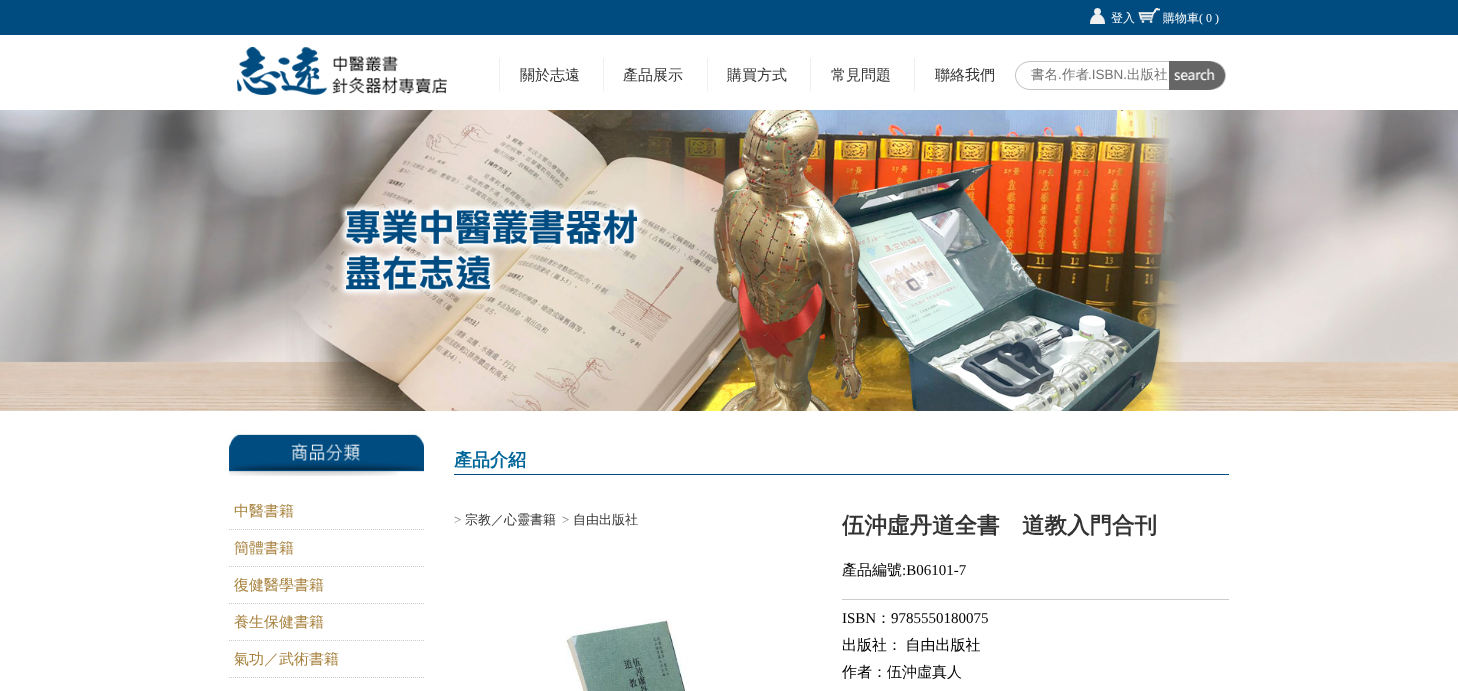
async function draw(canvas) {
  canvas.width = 1458;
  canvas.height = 691;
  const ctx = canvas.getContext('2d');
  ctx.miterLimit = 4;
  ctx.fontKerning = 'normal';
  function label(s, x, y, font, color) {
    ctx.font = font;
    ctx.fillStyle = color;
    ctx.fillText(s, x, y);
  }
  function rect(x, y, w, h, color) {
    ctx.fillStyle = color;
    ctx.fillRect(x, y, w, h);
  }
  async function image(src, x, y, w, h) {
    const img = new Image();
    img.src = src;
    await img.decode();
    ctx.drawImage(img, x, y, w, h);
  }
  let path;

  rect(0, 0, 1458, 691, '#fff');
  rect(0, 0, 1458, 35, '#004c80');
  await image('assets/img1.png', 1090, 8, 15, 16);
  label('登入', 1111, 22, '500 12px WenQuanYi Zen Hei', '#fff');
  await image('assets/img2.png', 1138, 8, 22, 15);
  label('購物車', 1163, 22, '500 12px WenQuanYi Zen Hei', '#fff');
  label('( 0 )', 1199, 22, '12px Liberation Serif', '#fff');
  await image('assets/img3.png', 237, 47, 210, 48);
  rect(499, 58, 1, 33, '#efefef');
  label('關於志遠', 520, 80, '500 15px WenQuanYi Zen Hei', '#333');
  rect(603, 58, 1, 33, '#efefef');
  label('產品展示', 623, 80, '500 15px WenQuanYi Zen Hei', '#333');
  rect(707, 58, 1, 33, '#efefef');
  label('購買方式', 727, 80, '500 15px WenQuanYi Zen Hei', '#333');
  rect(810, 58, 1, 33, '#efefef');
  label('常見問題', 831, 80, '500 15px WenQuanYi Zen Hei', '#333');
  rect(914, 58, 1, 33, '#efefef');
  label('聯絡我們', 935, 80, '500 15px WenQuanYi Zen Hei', '#333');
  await image('assets/img4.png', 1015, 61, 211, 29);
  label('書名 作者', 1031, 79, '500 13.5px WenQuanYi Zen Hei', '#757575');
  label('.ISBN.', 1088, 79, '13.5px Liberation Sans', '#757575');
  label('出版社', 1127, 79, '500 13.5px WenQuanYi Zen Hei', '#757575');
  label('.', 1058, 79, '13.5px Liberation Sans', '#757575');
  await image('assets/img5.png', 1169, 61, 48, 29);
  await image('assets/img6.png', 0, 110, 1458, 301);
  await image('assets/img7.png', 229, 429, 195, 47);
  path = new Path2D('M229 529.5H424');
  ctx.strokeStyle = '#ccc';
  ctx.setLineDash([1, 1]);
  ctx.stroke(path);
  label('中醫書籍', 234, 516, '500 15px WenQuanYi Zen Hei', '#a7823e');
  path = new Path2D('M229 566.5H424');
  ctx.stroke(path);
  label('簡體書籍', 234, 553, '500 15px WenQuanYi Zen Hei', '#a7823e');
  path = new Path2D('M229 603.5H424');
  ctx.stroke(path);
  label('復健醫學書籍', 234, 590, '500 15px WenQuanYi Zen Hei', '#a7823e');
  path = new Path2D('M229 640.5H424');
  ctx.stroke(path);
  label('養生保健書籍', 234, 627, '500 15px WenQuanYi Zen Hei', '#a7823e');
  path = new Path2D('M229 677.5H424');
  ctx.stroke(path);
  label('氣功／武術書籍', 234, 664, '500 15px WenQuanYi Zen Hei', '#a7823e');
  rect(454, 474, 775, 1, '#004c81');
  label('產品介紹', 454, 466, 'bold 18px WenQuanYi Zen Hei', '#069');
  label('>', 454, 524, '13px Liberation Serif', '#666');
  label('宗教／心靈書籍', 465, 524, '500 13px WenQuanYi Zen Hei', '#333');
  label('>', 562, 524, '13px Liberation Serif', '#666');
  label('自由出版社', 573, 524, '500 13px WenQuanYi Zen Hei', '#333');
  await image('assets/img8.png', 566, 619, 123, 72);
  label('伍沖虛丹道全書　道教入門合刊', 842, 533, 'bold 22.5px WenQuanYi Zen Hei', '#333');
  label('產品編號', 842, 575, '500 15px WenQuanYi Zen Hei', '#000');
  label(':B06101-7', 902, 575, '15px Liberation Serif', '#000');
  rect(842, 599, 387, 1, '#ccc');
  label('ISBN', 842, 623, '15px Liberation Serif', '#000');
  label('：', 876, 623, '500 15px WenQuanYi Zen Hei', '#000');
  label('9785550180075', 891, 623, '15px Liberation Serif', '#000');
  ctx.wordSpacing = '-1px';
  label('出版社： 自由出版社', 842, 650, '500 15px WenQuanYi Zen Hei', '#000');
  ctx.wordSpacing = '0px';
  label('作者：伍沖虛真人', 842, 677, '500 15px WenQuanYi Zen Hei', '#000');
}

draw(document.querySelector('canvas'));
